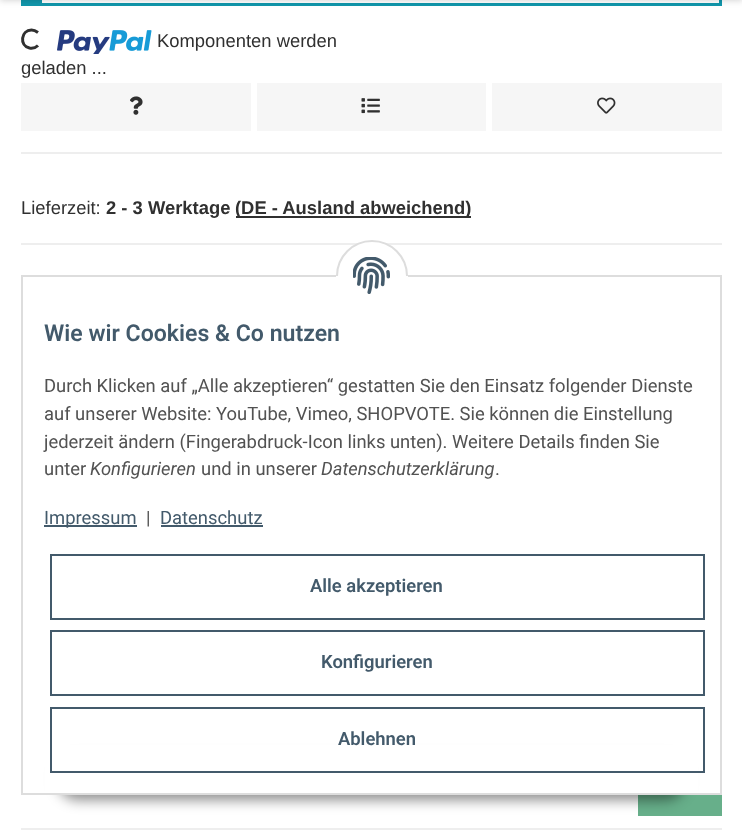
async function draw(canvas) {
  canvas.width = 742;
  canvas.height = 836;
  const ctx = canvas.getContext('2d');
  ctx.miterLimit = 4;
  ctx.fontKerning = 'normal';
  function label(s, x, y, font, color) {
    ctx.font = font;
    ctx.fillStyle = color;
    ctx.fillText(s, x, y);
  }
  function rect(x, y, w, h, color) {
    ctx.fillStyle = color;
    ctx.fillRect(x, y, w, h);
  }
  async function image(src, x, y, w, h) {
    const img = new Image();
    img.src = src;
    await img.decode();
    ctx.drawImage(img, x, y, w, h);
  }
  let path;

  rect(0, 0, 742, 836, '#fff');
  rect(719, 0, 3, 6, '#1196ab');
  rect(42, 3, 680, 3, '#1196ab');
  rect(21, 0, 21, 6, '#1196ab');
  ctx.fillStyle = '#00000033';
  ctx.filter = 'blur(3.5px)';
  ctx.beginPath();
  ctx.rect(0, -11, 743, 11);
  ctx.fill();
  ctx.filter = 'none';
  path = new Path2D('M38 45.5C36 47.5 32.5 48.5 29.5 48C19 45.5 21 30 31.5 30C34 30 36 31 38 32.5');
  ctx.strokeStyle = '#303030';
  ctx.lineWidth = 3;
  ctx.stroke(path);
  await image('assets/img1.png', 57, 30, 95, 24);
  label('Komponenten werden', 157, 47, '18.4px Liberation Sans', '#303030');
  label('geladen ...', 21, 74, '18.4px Liberation Sans', '#303030');
  rect(21, 152, 701, 2, '#eee');
  rect(21, 83, 230, 48, '#f6f6f6');
  await image('assets/img2.png', 130, 96, 13, 19);
  rect(257, 83, 229, 48, '#f6f6f6');
  await image('assets/img3.png', 361, 98, 19, 16);
  rect(492, 83, 230, 48, '#f6f6f6');
  await image('assets/img4.png', 597, 97, 19, 17);
  label('Lieferzeit:', 21, 214, '18.4px Liberation Sans', '#303030');
  label('2 - 3 Werktage', 106, 214, 'bold 18.4px Liberation Sans', '#303030');
  rect(236, 216, 235, 2, '#303030');
  label('(DE - Ausland abweichend)', 235, 214, 'bold 18.4px Liberation Sans', '#303030');
  rect(21, 243, 701, 2, '#eee');
  rect(21, 828, 701, 2, '#eee');
  rect(638, 795, 84, 21, '#67af8a');
  ctx.fillStyle = '#00000073';
  ctx.filter = 'blur(6.5px)';
  ctx.beginPath();
  ctx.roundRect(57, 758, 629, 42, 21);
  ctx.fill();
  ctx.filter = 'none';
  rect(45, 745, 653, 48, '#fff');
  ctx.strokeStyle = '#ddd';
  ctx.lineWidth = 2;
  ctx.strokeRect(22, 276, 699, 518);
  ctx.beginPath();
  ctx.arc(372, 276, 35, 0, 2 * Math.PI);
  ctx.fill();
  ctx.stroke();
  rect(336, 276, 72, 36, '#fff');
  await image('assets/img5.png', 353, 257, 37, 37);
  label('Wie wir Cookies & Co nutzen', 44, 341, '600 23.1px Roboto', '#435a6b');
  label('Durch Klicken auf „Alle akzeptieren“ gestatten Sie den Einsatz folgender Dienste', 44, 392, '18.4px Roboto', '#525252');
  label('auf unserer Website: YouTube, Vimeo, SHOPVOTE. Sie können die Einstellung', 44, 420, '18.4px Roboto', '#525252');
  label('jederzeit ändern (Fingerabdruck-Icon links unten). Weitere Details finden Sie', 44, 448, '18.4px Roboto', '#525252');
  label('unter', 44, 475, '18.4px Roboto', '#525252');
  label('Konfigurieren', 90, 475, 'italic 18.4px Roboto', '#525252');
  label('und in unserer', 201, 475, '18.4px Roboto', '#525252');
  label('Datenschutzerklärung', 321, 475, 'italic 18.4px Roboto', '#525252');
  label('.', 495, 475, '18.4px Roboto', '#525252');
  rect(44, 525, 93, 2, '#435a6b');
  label('Impressum', 44, 524, '18.4px Roboto', '#435a6b');
  label('|', 146, 524, '18.4px Roboto', '#525252');
  label('Datenschutz', 160, 524, '18.4px Roboto', '#435a6b');
  rect(161, 525, 102, 2, '#435a6b');
  ctx.strokeStyle = '#435a6b';
  ctx.strokeRect(51, 555, 653, 64);
  label('Alle akzeptieren', 310, 592, '600 18.4px Roboto', '#435a6b');
  ctx.strokeRect(51, 631, 653, 64);
  label('Konfigurieren', 321, 668, '600 18.4px Roboto', '#435a6b');
  ctx.strokeRect(51, 708, 653, 64);
  label('Ablehnen', 338, 745, '600 18.4px Roboto', '#435a6b');
}

draw(document.querySelector('canvas'));
